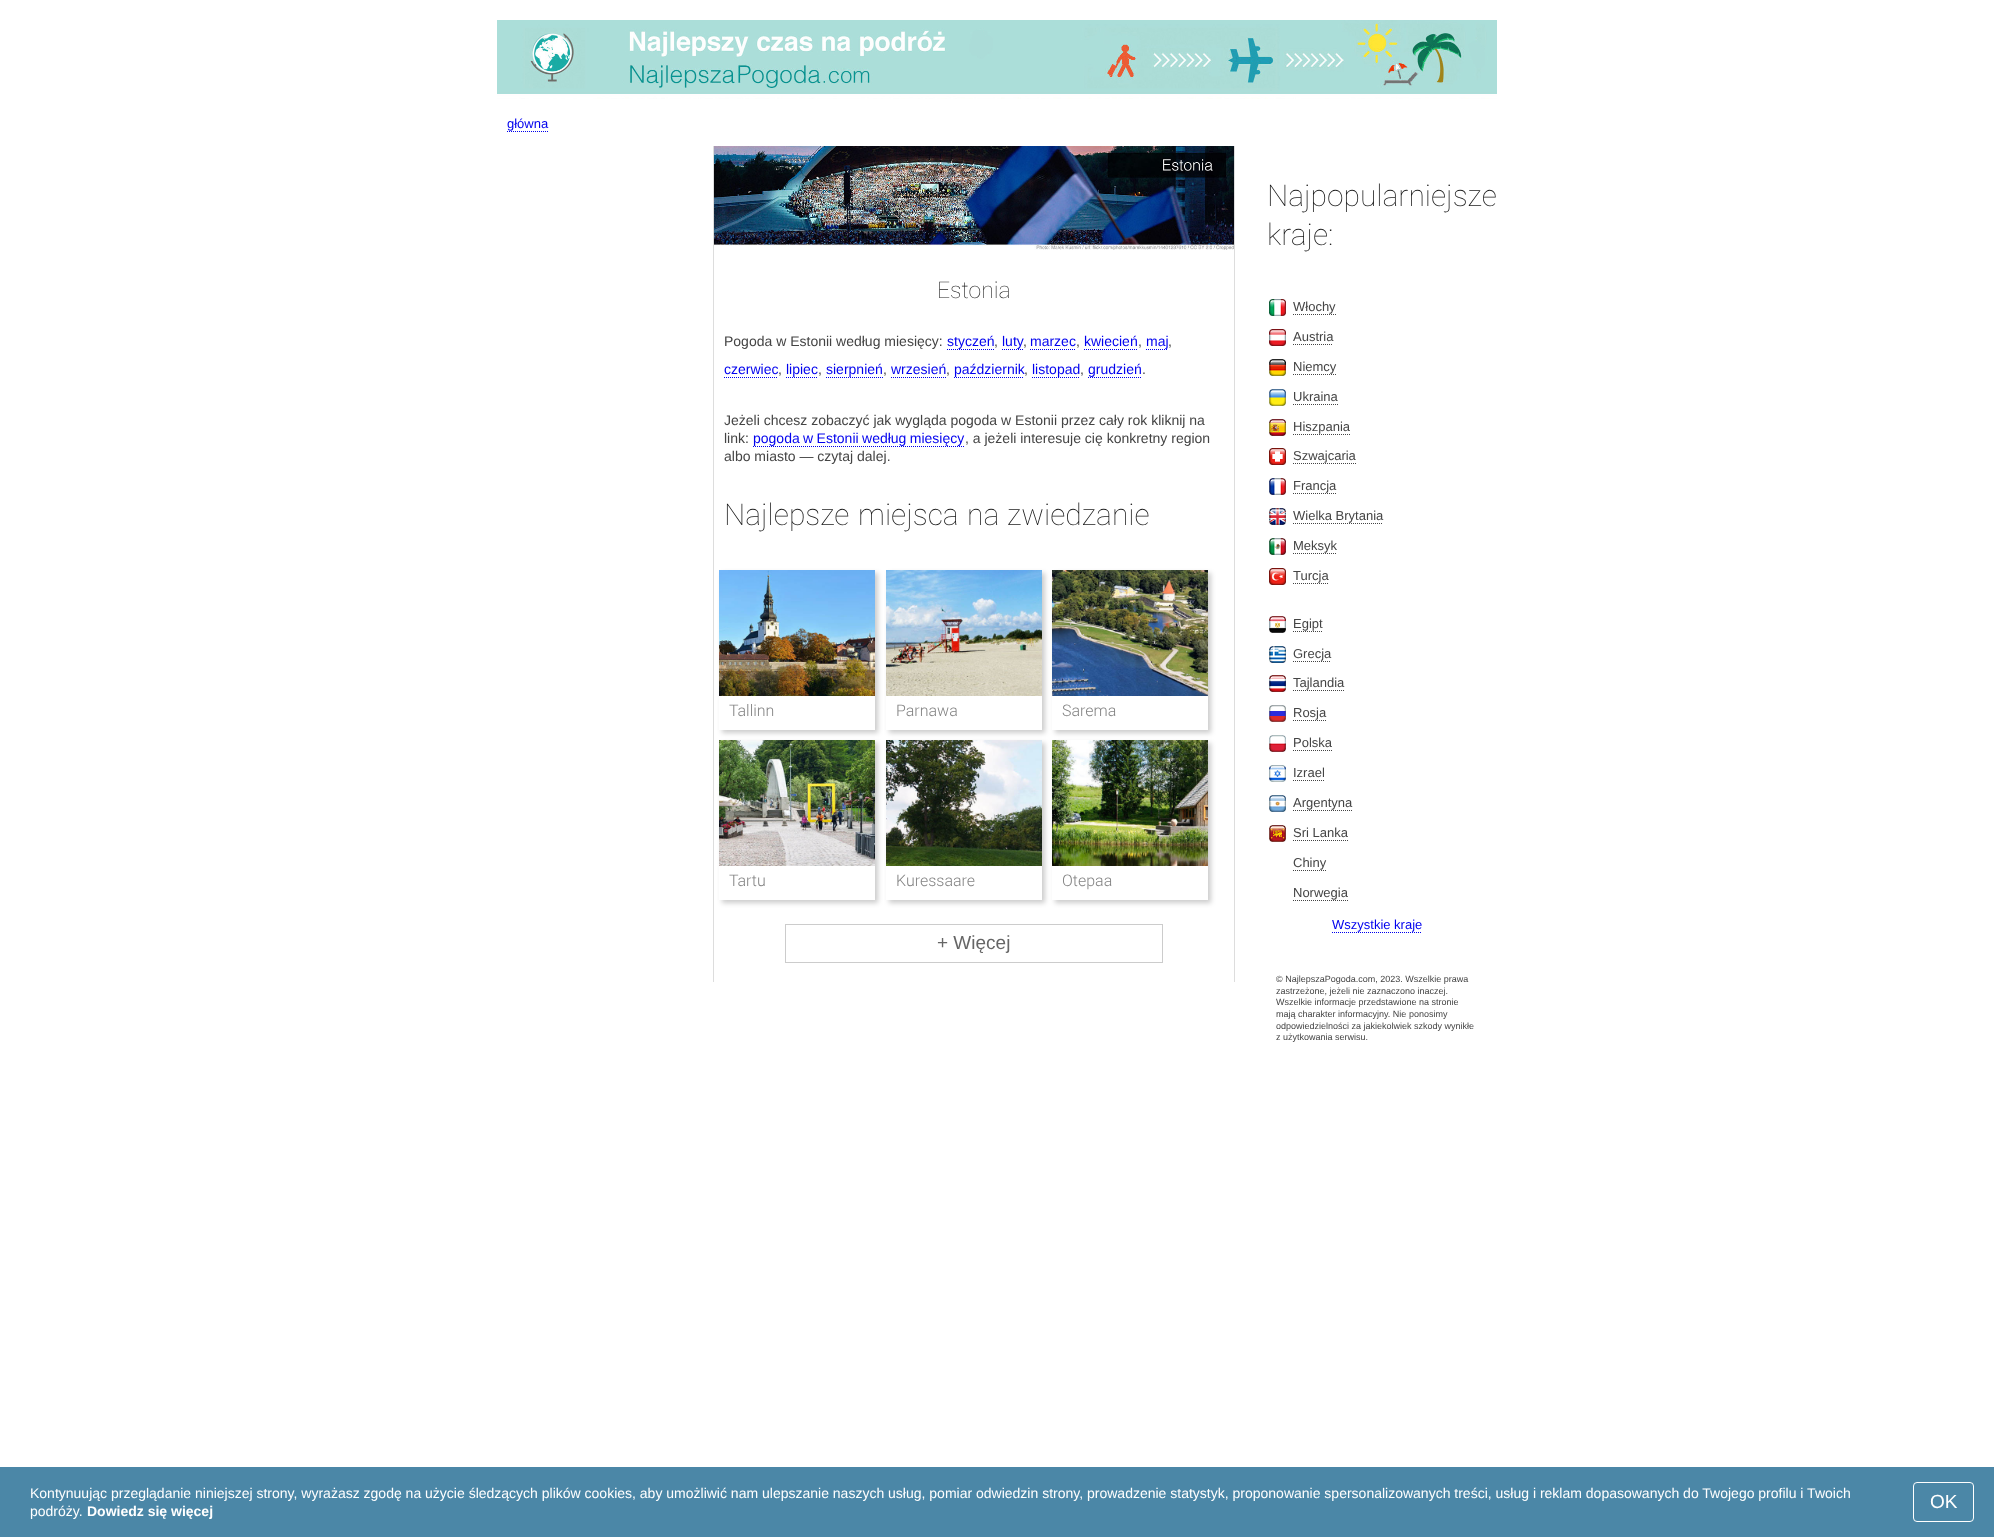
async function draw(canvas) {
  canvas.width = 1994;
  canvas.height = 1537;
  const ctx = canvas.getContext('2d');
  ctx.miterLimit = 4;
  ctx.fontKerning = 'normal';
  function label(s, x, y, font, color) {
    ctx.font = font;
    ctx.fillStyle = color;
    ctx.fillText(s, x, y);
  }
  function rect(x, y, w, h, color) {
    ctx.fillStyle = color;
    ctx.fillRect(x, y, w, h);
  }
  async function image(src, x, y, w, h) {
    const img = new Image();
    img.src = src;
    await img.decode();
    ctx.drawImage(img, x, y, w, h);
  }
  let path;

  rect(0, 0, 1994, 1537, '#fff');
  await image('assets/img1.png', 497, 20, 1000, 79);
  label('główna', 507, 128, '13px Liberation Sans', '#00e');
  path = new Path2D('M507 131.5H548');
  ctx.strokeStyle = '#00e';
  ctx.setLineDash([1, 1]);
  ctx.stroke(path);
  rect(1234, 146, 1, 836, '#ddd');
  rect(713, 146, 1, 836, '#ddd');
  await image('assets/img2.png', 714, 146, 520, 104);
  label('Estonia', 937, 298, '100 23px Roboto', '#1a1a1a');
  label('Pogoda w Estonii według miesięcy:', 724, 346, '14px Liberation Sans', '#444');
  label('styczeń', 947, 346, '14px Liberation Sans', '#00e');
  path = new Path2D('M947 349.5H994');
  ctx.stroke(path);
  label(',', 994, 346, '14px Liberation Sans', '#444');
  label('luty', 1002, 346, '14px Liberation Sans', '#00e');
  path = new Path2D('M1002 349.5H1023');
  ctx.stroke(path);
  label(',', 1023, 346, '14px Liberation Sans', '#444');
  label('marzec', 1030, 346, '14px Liberation Sans', '#00e');
  path = new Path2D('M1030 349.5H1076');
  ctx.stroke(path);
  label(',', 1076, 346, '14px Liberation Sans', '#444');
  label('kwiecień', 1084, 346, '14px Liberation Sans', '#00e');
  path = new Path2D('M1084 349.5H1138');
  ctx.stroke(path);
  label(',', 1138, 346, '14px Liberation Sans', '#444');
  label('maj', 1146, 346, '14px Liberation Sans', '#00e');
  path = new Path2D('M1146 349.5H1168');
  ctx.stroke(path);
  label(',', 1168, 346, '14px Liberation Sans', '#444');
  label('czerwiec', 724, 374, '14px Liberation Sans', '#00e');
  path = new Path2D('M724 377.5H778');
  ctx.stroke(path);
  label(',', 778, 374, '14px Liberation Sans', '#444');
  label('lipiec', 786, 374, '14px Liberation Sans', '#00e');
  path = new Path2D('M786 377.5H818');
  ctx.stroke(path);
  label(',', 818, 374, '14px Liberation Sans', '#444');
  label('sierpnień', 826, 374, '14px Liberation Sans', '#00e');
  path = new Path2D('M826 377.5H883');
  ctx.stroke(path);
  label(',', 883, 374, '14px Liberation Sans', '#444');
  label('wrzesień', 891, 374, '14px Liberation Sans', '#00e');
  path = new Path2D('M891 377.5H946');
  ctx.stroke(path);
  label(',', 946, 374, '14px Liberation Sans', '#444');
  label('październik', 954, 374, '14px Liberation Sans', '#00e');
  path = new Path2D('M954 377.5H1024');
  ctx.stroke(path);
  label(',', 1024, 374, '14px Liberation Sans', '#444');
  label('listopad', 1032, 374, '14px Liberation Sans', '#00e');
  path = new Path2D('M1032 377.5H1080');
  ctx.stroke(path);
  label(',', 1080, 374, '14px Liberation Sans', '#444');
  label('grudzień', 1088, 374, '14px Liberation Sans', '#00e');
  path = new Path2D('M1088 377.5H1142');
  ctx.stroke(path);
  label('.', 1142, 374, '14px Liberation Sans', '#444');
  label('Jeżeli chcesz zobaczyć jak wygląda pogoda w Estonii przez cały rok kliknij na', 724, 425, '14px Liberation Sans', '#444');
  label('link:', 724, 443, '14px Liberation Sans', '#444');
  ctx.wordSpacing = '-0.5px';
  label('pogoda w Estonii według miesięcy', 753, 443, '14px Liberation Sans', '#00e');
  path = new Path2D('M753 446.5H965');
  ctx.stroke(path);
  ctx.wordSpacing = '0px';
  label(', a jeżeli interesuje cię konkretny region', 965, 443, '14px Liberation Sans', '#444');
  label('albo miasto — czytaj dalej.', 724, 461, '14px Liberation Sans', '#444');
  label('Najlepsze', 724, 525, '100 30px Roboto', '#1a1a1a');
  label('miejsca', 858, 525, '100 30px Roboto', '#1a1a1a');
  label('na', 967, 525, '100 30px Roboto', '#1a1a1a');
  label('zwiedzanie', 1007, 525, '100 30px Roboto', '#1a1a1a');
  ctx.fillStyle = '#00000033';
  ctx.filter = 'blur(2.5px)';
  ctx.beginPath();
  ctx.rect(722, 573, 156, 160);
  ctx.fill();
  ctx.filter = 'none';
  await image('assets/img3.png', 719, 570, 156, 126);
  rect(719, 696, 156, 34, '#fff');
  label('Tallinn', 729, 716, '300 16px Roboto', '#848484');
  ctx.fillStyle = '#00000033';
  ctx.filter = 'blur(2.5px)';
  ctx.beginPath();
  ctx.rect(889, 573, 156, 160);
  ctx.fill();
  ctx.filter = 'none';
  await image('assets/img4.png', 886, 570, 156, 126);
  rect(886, 696, 156, 34, '#fff');
  label('Parnawa', 896, 716, '300 16px Roboto', '#848484');
  ctx.fillStyle = '#00000033';
  ctx.filter = 'blur(2.5px)';
  ctx.beginPath();
  ctx.rect(1055, 573, 156, 160);
  ctx.fill();
  ctx.filter = 'none';
  await image('assets/img5.png', 1052, 570, 156, 126);
  rect(1052, 696, 156, 34, '#fff');
  label('Sarema', 1062, 716, '300 16px Roboto', '#848484');
  ctx.fillStyle = '#00000033';
  ctx.filter = 'blur(2.5px)';
  ctx.beginPath();
  ctx.rect(722, 743, 156, 160);
  ctx.fill();
  ctx.filter = 'none';
  await image('assets/img6.png', 719, 740, 156, 126);
  rect(719, 866, 156, 34, '#fff');
  label('Tartu', 729, 886, '300 16px Roboto', '#848484');
  ctx.fillStyle = '#00000033';
  ctx.filter = 'blur(2.5px)';
  ctx.beginPath();
  ctx.rect(889, 743, 156, 160);
  ctx.fill();
  ctx.filter = 'none';
  await image('assets/img7.png', 886, 740, 156, 126);
  rect(886, 866, 156, 34, '#fff');
  label('Kuressaare', 896, 886, '300 16px Roboto', '#848484');
  ctx.fillStyle = '#00000033';
  ctx.filter = 'blur(2.5px)';
  ctx.beginPath();
  ctx.rect(1055, 743, 156, 160);
  ctx.fill();
  ctx.filter = 'none';
  await image('assets/img8.png', 1052, 740, 156, 126);
  rect(1052, 866, 156, 34, '#fff');
  label('Otepaa', 1062, 886, '300 16px Roboto', '#848484');
  ctx.strokeStyle = '#ccc';
  ctx.setLineDash([]);
  ctx.strokeRect(785.5, 924.5, 377, 38);
  label('+ Więcej', 937, 949, '19px Liberation Sans', '#666');
  label('Najpopularniejsze', 1267, 206, '100 30px Roboto', '#1a1a1a');
  label('kraje:', 1267, 245, '100 30px Roboto', '#1a1a1a');
  await image('assets/img9.png', 1269, 299, 17, 17);
  label('Włochy', 1293, 311, '13px Liberation Sans', '#444');
  path = new Path2D('M1293 314.5H1336');
  ctx.strokeStyle = '#444';
  ctx.setLineDash([1, 1]);
  ctx.stroke(path);
  await image('assets/img10.png', 1269, 329, 17, 17);
  label('Austria', 1293, 341, '13px Liberation Sans', '#444');
  path = new Path2D('M1293 344.5H1333');
  ctx.stroke(path);
  await image('assets/img11.png', 1269, 359, 17, 17);
  label('Niemcy', 1293, 371, '13px Liberation Sans', '#444');
  path = new Path2D('M1293 374.5H1336');
  ctx.stroke(path);
  await image('assets/img12.png', 1269, 389, 17, 17);
  label('Ukraina', 1293, 401, '13px Liberation Sans', '#444');
  path = new Path2D('M1293 404.5H1338');
  ctx.stroke(path);
  await image('assets/img13.png', 1269, 419, 17, 17);
  label('Hiszpania', 1293, 431, '13px Liberation Sans', '#444');
  path = new Path2D('M1293 434.5H1350');
  ctx.stroke(path);
  await image('assets/img14.png', 1269, 448, 17, 17);
  label('Szwajcaria', 1293, 460, '13px Liberation Sans', '#444');
  path = new Path2D('M1293 463.5H1356');
  ctx.stroke(path);
  await image('assets/img15.png', 1269, 478, 17, 17);
  label('Francja', 1293, 490, '13px Liberation Sans', '#444');
  path = new Path2D('M1293 493.5H1336');
  ctx.stroke(path);
  await image('assets/img16.png', 1269, 508, 17, 17);
  label('Wielka Brytania', 1293, 520, '13px Liberation Sans', '#444');
  path = new Path2D('M1293 523.5H1383');
  ctx.stroke(path);
  await image('assets/img17.png', 1269, 538, 17, 17);
  label('Meksyk', 1293, 550, '13px Liberation Sans', '#444');
  path = new Path2D('M1293 553.5H1337');
  ctx.stroke(path);
  await image('assets/img18.png', 1269, 568, 17, 17);
  label('Turcja', 1293, 580, '13px Liberation Sans', '#444');
  path = new Path2D('M1293 583.5H1329');
  ctx.stroke(path);
  await image('assets/img19.png', 1269, 616, 17, 17);
  label('Egipt', 1293, 628, '13px Liberation Sans', '#444');
  path = new Path2D('M1293 631.5H1323');
  ctx.stroke(path);
  await image('assets/img20.png', 1269, 646, 17, 17);
  label('Grecja', 1293, 658, '13px Liberation Sans', '#444');
  path = new Path2D('M1293 661.5H1331');
  ctx.stroke(path);
  await image('assets/img21.png', 1269, 675, 17, 17);
  label('Tajlandia', 1293, 687, '13px Liberation Sans', '#444');
  path = new Path2D('M1293 690.5H1344');
  ctx.stroke(path);
  await image('assets/img22.png', 1269, 705, 17, 17);
  label('Rosja', 1293, 717, '13px Liberation Sans', '#444');
  path = new Path2D('M1293 720.5H1326');
  ctx.stroke(path);
  await image('assets/img23.png', 1269, 735, 17, 17);
  label('Polska', 1293, 747, '13px Liberation Sans', '#444');
  path = new Path2D('M1293 750.5H1332');
  ctx.stroke(path);
  await image('assets/img24.png', 1269, 765, 17, 17);
  label('Izrael', 1293, 777, '13px Liberation Sans', '#444');
  path = new Path2D('M1293 780.5H1325');
  ctx.stroke(path);
  await image('assets/img25.png', 1269, 795, 17, 17);
  label('Argentyna', 1293, 807, '13px Liberation Sans', '#444');
  path = new Path2D('M1293 810.5H1352');
  ctx.stroke(path);
  await image('assets/img26.png', 1269, 825, 17, 17);
  label('Sri Lanka', 1293, 837, '13px Liberation Sans', '#444');
  path = new Path2D('M1293 840.5H1348');
  ctx.stroke(path);
  label('Chiny', 1293, 867, '13px Liberation Sans', '#444');
  path = new Path2D('M1293 870.5H1326');
  ctx.stroke(path);
  label('Norwegia', 1293, 897, '13px Liberation Sans', '#444');
  path = new Path2D('M1293 900.5H1348');
  ctx.stroke(path);
  label('Wszystkie kraje', 1332, 929, '13px Liberation Sans', '#00e');
  path = new Path2D('M1332 932.5H1422');
  ctx.strokeStyle = '#00e';
  ctx.stroke(path);
  label('© NajlepszaPogoda.com, 2023. Wszelkie prawa', 1276, 982, '9px Liberation Sans', '#444');
  label('zastrzeżone, jeżeli nie zaznaczono inaczej.', 1276, 994, '9px Liberation Sans', '#444');
  label('Wszelkie informacje przedstawione na stronie', 1276, 1005, '9px Liberation Sans', '#444');
  label('mają charakter informacyjny. Nie ponosimy', 1276, 1017, '9px Liberation Sans', '#444');
  label('odpowiedzielności za jakiekolwiek szkody wynikłe', 1276, 1029, '9px Liberation Sans', '#444');
  label('z użytkowania serwisu.', 1276, 1040, '9px Liberation Sans', '#444');
  rect(0, 1467, 1994, 70, '#4b87a7');
  label('Kontynuując przeglądanie niniejszej strony, wyrażasz zgodę na użycie śledzących plików cookies, aby umożliwić nam ulepszanie naszych usług, pomiar odwiedzin strony, prowadzenie statystyk, proponowanie spersonalizowanych treści, usług i reklam dopasowanych do Twojego profilu i Twoich', 30, 1498, '14px Liberation Sans', '#fff');
  label('podróży.', 30, 1516, '14px Liberation Sans', '#fff');
  label('Dowiedz się więcej', 87, 1516, 'bold 14px Liberation Sans', '#fff');
  ctx.beginPath();
  ctx.roundRect(1913.5, 1482.5, 60, 39, 3.5);
  ctx.strokeStyle = '#fff';
  ctx.setLineDash([]);
  ctx.stroke();
  label('OK', 1930, 1508, '19px Liberation Sans', '#fff');
}

draw(document.querySelector('canvas'));
